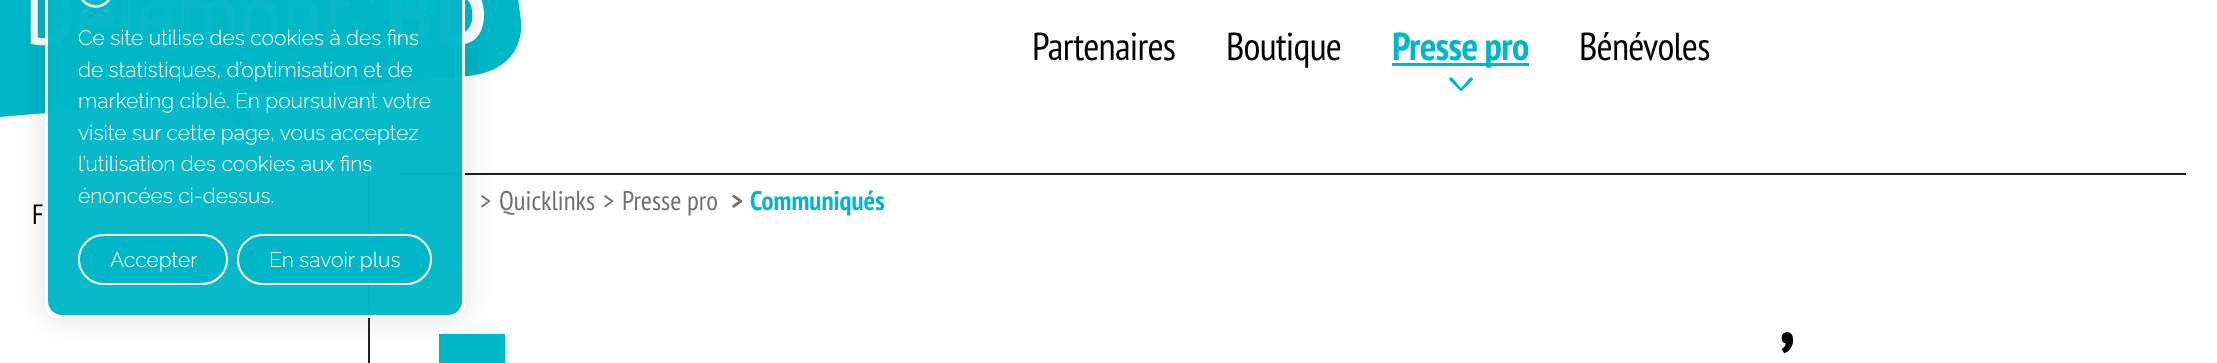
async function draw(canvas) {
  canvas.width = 2217;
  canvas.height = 363;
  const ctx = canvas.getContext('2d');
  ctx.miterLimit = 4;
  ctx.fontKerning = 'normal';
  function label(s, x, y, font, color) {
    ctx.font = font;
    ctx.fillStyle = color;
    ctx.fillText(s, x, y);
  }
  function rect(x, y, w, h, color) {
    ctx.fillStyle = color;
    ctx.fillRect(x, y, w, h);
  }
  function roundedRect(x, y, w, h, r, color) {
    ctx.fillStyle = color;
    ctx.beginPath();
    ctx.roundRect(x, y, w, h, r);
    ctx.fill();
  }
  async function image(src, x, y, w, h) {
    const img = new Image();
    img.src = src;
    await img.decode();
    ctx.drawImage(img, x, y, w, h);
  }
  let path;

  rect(0, 0, 2217, 363, '#fff');
  await image('assets/img2.png', 0, 0, 522, 137);
  rect(368, 173, 2, 190, '#231f20');
  rect(401, 173, 1785, 2, '#231f20');
  ctx.fillStyle = '#00b7c7';
  path = new Path2D('M505 334V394L464 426V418C471 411 476 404 477 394H439V334Z');
  ctx.fill(path);
  ctx.save();
  path = new Path2D('M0 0H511V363H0ZM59-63H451C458.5-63 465-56.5 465-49V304C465 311.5 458.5 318 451 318H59C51.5 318 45 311.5 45 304V-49C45-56.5 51.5-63 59-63Z');
  ctx.clip(path, 'evenodd');
  ctx.fillStyle = '#0000001f';
  ctx.filter = 'blur(15px)';
  ctx.beginPath();
  ctx.roundRect(45, -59, 420, 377, 14);
  ctx.fill();
  ctx.filter = 'none';
  ctx.restore();
  ctx.beginPath();
  ctx.roundRect(46.5, -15.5, 417, 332, 12.5);
  ctx.strokeStyle = '#fff';
  ctx.lineWidth = 3;
  ctx.stroke();
  roundedRect(48, -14, 414, 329, 14, '#00b7c7f7');
  await image('assets/img1.png', 81, 0, 30, 8);
  label('Ce site utilise des cookies à des fins', 78, 45, '300 21px Raleway', '#fff');
  label('de statistiques, d’optimisation et de', 78, 77, '300 21px Raleway', '#fff');
  label('marketing ciblé. En poursuivant votre', 78, 108, '300 21px Raleway', '#fff');
  label('visite sur cette page, vous acceptez', 78, 140, '300 21px Raleway', '#fff');
  label('l’utilisation des cookies aux fins', 78, 171, '300 21px Raleway', '#fff');
  label('énoncées ci-dessus.', 78, 203, '300 21px Raleway', '#fff');
  ctx.fillStyle = '#00b7c7';
  ctx.beginPath();
  ctx.roundRect(79, 235, 148, 49, 24.5);
  ctx.fill();
  ctx.lineWidth = 2;
  ctx.stroke();
  label('Accepter', 110, 267, '300 21px Raleway', '#fff');
  ctx.fillStyle = '#00b7c7';
  ctx.beginPath();
  ctx.roundRect(238, 235, 193, 49, 24.5);
  ctx.fill();
  ctx.stroke();
  label('En savoir plus', 269, 267, '300 21px Raleway', '#fff');
  ctx.letterSpacing = '-0.75px';
  label('Partenaires', 1032, 60, '39px PT Sans Narrow', '#000');
  label('Boutique', 1226, 60, '39px PT Sans Narrow', '#000');
  rect(1392, 63, 137, 3, '#00b7c7');
  label('Presse pro', 1392, 60, 'bold 39px PT Sans Narrow', '#00b7c7');
  await image('assets/img3.png', 1449, 77, 24, 14);
  label('Bénévoles', 1579, 60, '39px PT Sans Narrow', '#000');
  ctx.letterSpacing = '0px';
  label('F', 32, 224, '28px PT Sans Narrow', '#000');
  label('>', 480, 210, '27px PT Sans Narrow', '#6f6f6f');
  label('Quicklinks', 499, 210, '27px PT Sans Narrow', '#6f6f6f');
  label('>', 603, 210, '27px PT Sans Narrow', '#6f6f6f');
  label('Presse pro', 622, 210, '27px PT Sans Narrow', '#6f6f6f');
  label('>', 731, 210, 'bold 27px PT Sans Narrow', '#6f6f6f');
  label('Communiqués', 750, 210, 'bold 27px PT Sans Narrow', '#00b7c7');
  label('’', 1779, 395, 'bold 89px PT Sans Narrow', '#000');
}

draw(document.querySelector('canvas'));
